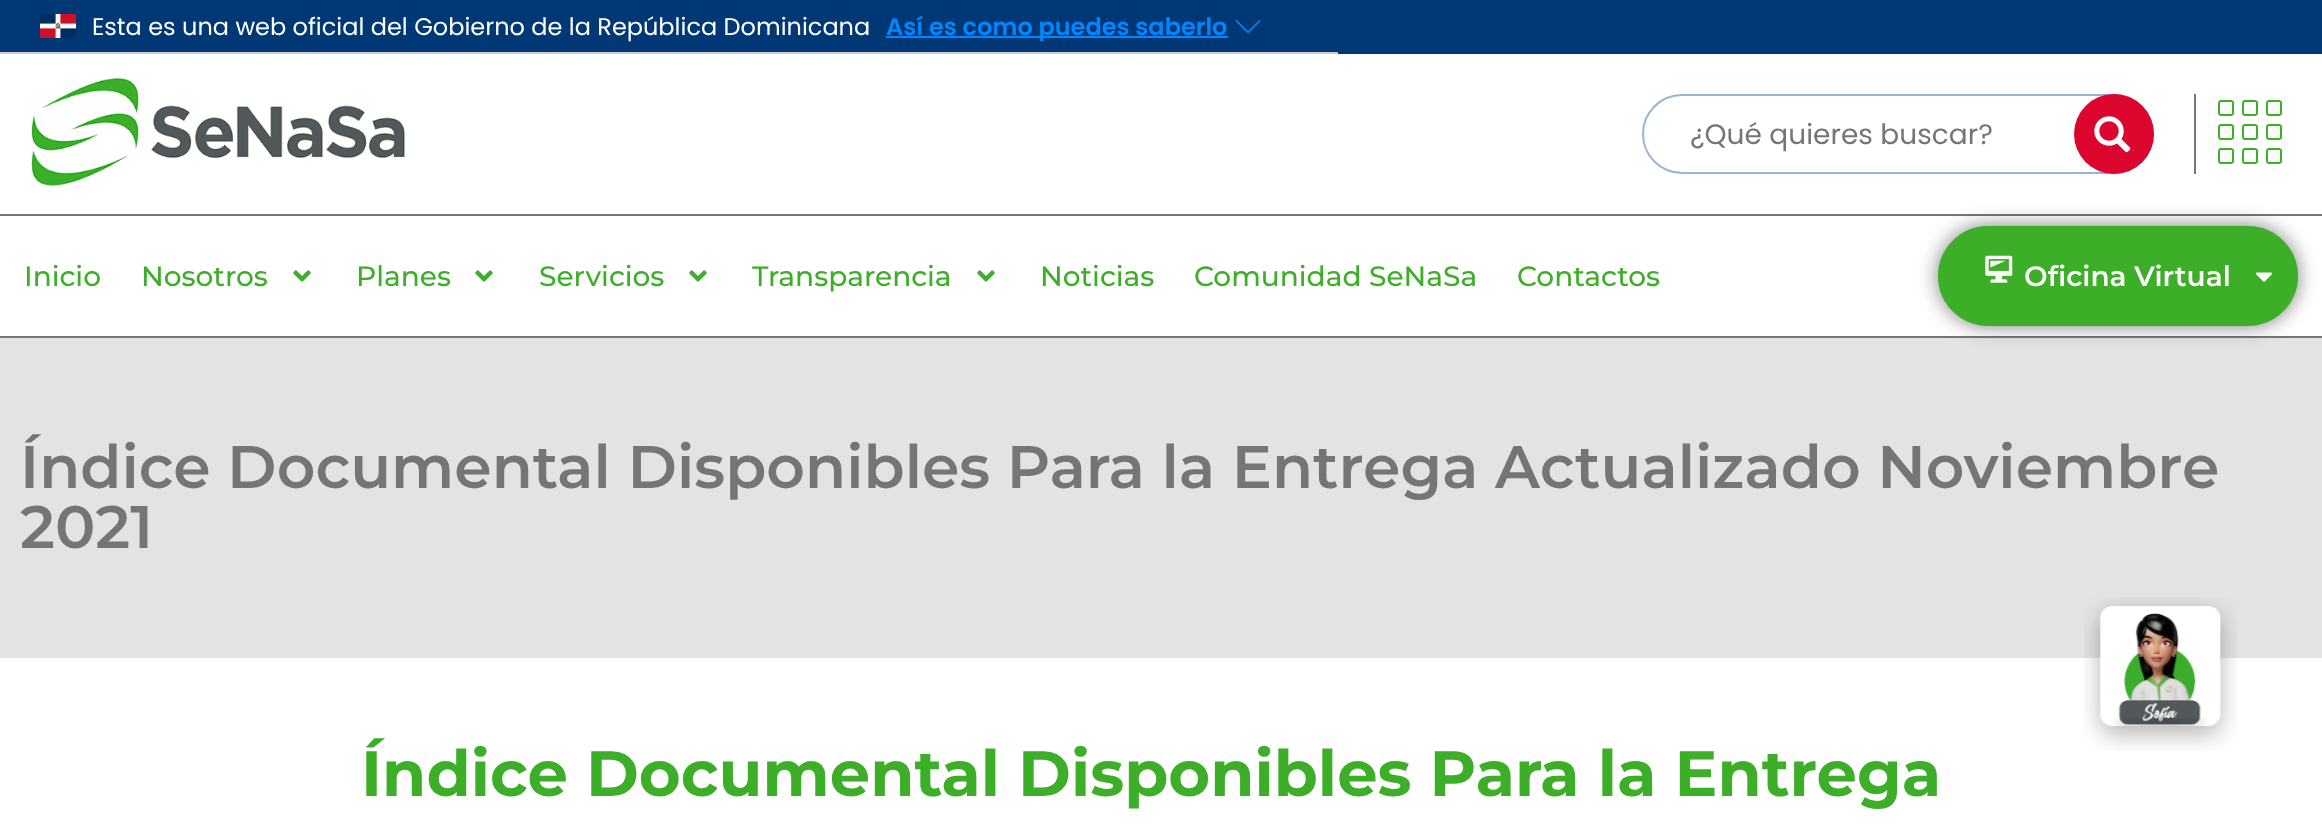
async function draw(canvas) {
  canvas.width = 2322;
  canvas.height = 824;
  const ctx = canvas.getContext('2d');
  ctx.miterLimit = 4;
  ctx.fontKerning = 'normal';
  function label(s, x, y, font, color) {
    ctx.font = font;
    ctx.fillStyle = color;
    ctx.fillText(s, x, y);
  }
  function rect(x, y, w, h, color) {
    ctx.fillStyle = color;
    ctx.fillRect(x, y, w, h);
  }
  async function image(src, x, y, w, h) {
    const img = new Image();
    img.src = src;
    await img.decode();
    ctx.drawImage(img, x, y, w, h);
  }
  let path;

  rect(0, 0, 2322, 824, '#fff');
  rect(0, 0, 2322, 54, '#003876');
  rect(0, 52, 1338, 2, '#ccc');
  await image('assets/img1.png', 40, 14, 36, 24);
  label('Esta es una web oficial del Gobierno de la República Dominicana', 92, 35, '24px Poppins', '#fff');
  rect(886, 36, 342, 2, '#0087ff');
  label('Así es como puedes saberlo', 886, 35, '600 24px Poppins', '#0087ff');
  path = new Path2D('M1259.5 21L1248 32.5L1236.5 21');
  ctx.strokeStyle = '#0087ff';
  ctx.lineWidth = 1.7;
  ctx.lineCap = 'round';
  ctx.lineJoin = 'round';
  ctx.stroke(path);
  await image('assets/img2.png', 31, 78, 374, 108);
  ctx.beginPath();
  ctx.roundRect(1643, 95, 510, 78, 39);
  ctx.strokeStyle = '#98b4d4';
  ctx.lineWidth = 2;
  ctx.lineJoin = 'miter';
  ctx.stroke();
  label('¿Qué quieres buscar?', 1690, 144, '28px Poppins', '#757575');
  ctx.fillStyle = '#dc052d';
  ctx.beginPath();
  ctx.arc(2114, 134, 40, 0, 2 * Math.PI);
  ctx.fill();
  await image('assets/img3.png', 2094, 116, 37, 37);
  rect(2194, 94, 2, 80, '#777');
  await image('assets/img4.png', 2218, 100, 64, 64);
  rect(0, 214, 2322, 2, '#777');
  rect(0, 336, 2322, 2, '#777');
  label('Inicio', 24, 286, '500 28px Montserrat', '#3dae28');
  label('Nosotros', 141, 286, '500 28px Montserrat', '#3dae28');
  await image('assets/img5.png', 293, 270, 18, 12);
  label('Planes', 356, 286, '500 28px Montserrat', '#3dae28');
  await image('assets/img5.png', 475, 270, 18, 12);
  label('Servicios', 539, 286, '500 28px Montserrat', '#3dae28');
  await image('assets/img5.png', 689, 270, 18, 12);
  label('Transparencia', 752, 286, '500 28px Montserrat', '#3dae28');
  await image('assets/img5.png', 977, 270, 18, 12);
  label('Noticias', 1040, 286, '500 28px Montserrat', '#3dae28');
  label('Comunidad SeNaSa', 1194, 286, '500 28px Montserrat', '#3dae28');
  label('Contactos', 1517, 286, '500 28px Montserrat', '#3dae28');
  rect(0, 338, 2322, 320, '#e3e3e3');
  ctx.fillStyle = '#00000080';
  ctx.filter = 'blur(10px)';
  ctx.beginPath();
  ctx.roundRect(1938, 226, 360, 100, 50);
  ctx.fill();
  ctx.filter = 'none';
  ctx.fillStyle = '#3dae28';
  ctx.beginPath();
  ctx.roundRect(1940, 228, 356, 96, 48);
  ctx.fill();
  ctx.strokeStyle = '#3dae28';
  ctx.lineWidth = 4;
  ctx.stroke();
  await image('assets/img6.png', 1985, 255, 28, 28);
  label('Oficina Virtual', 2024, 286, '600 28px Montserrat', '#fff');
  await image('assets/img7.png', 2255, 272, 18, 10);
  label('Índice Documental Disponibles Para la Entrega Actualizado Noviembre', 20, 488, '600 60px Montserrat', '#757575');
  label('2021', 20, 548, '600 60px Montserrat', '#757575');
  await image('assets/img8.png', 2084, 597, 153, 154);
  label('Índice Documental Disponibles Para la Entrega', 361, 796, 'bold 64px Montserrat', '#3dae28');
}

draw(document.querySelector('canvas'));
